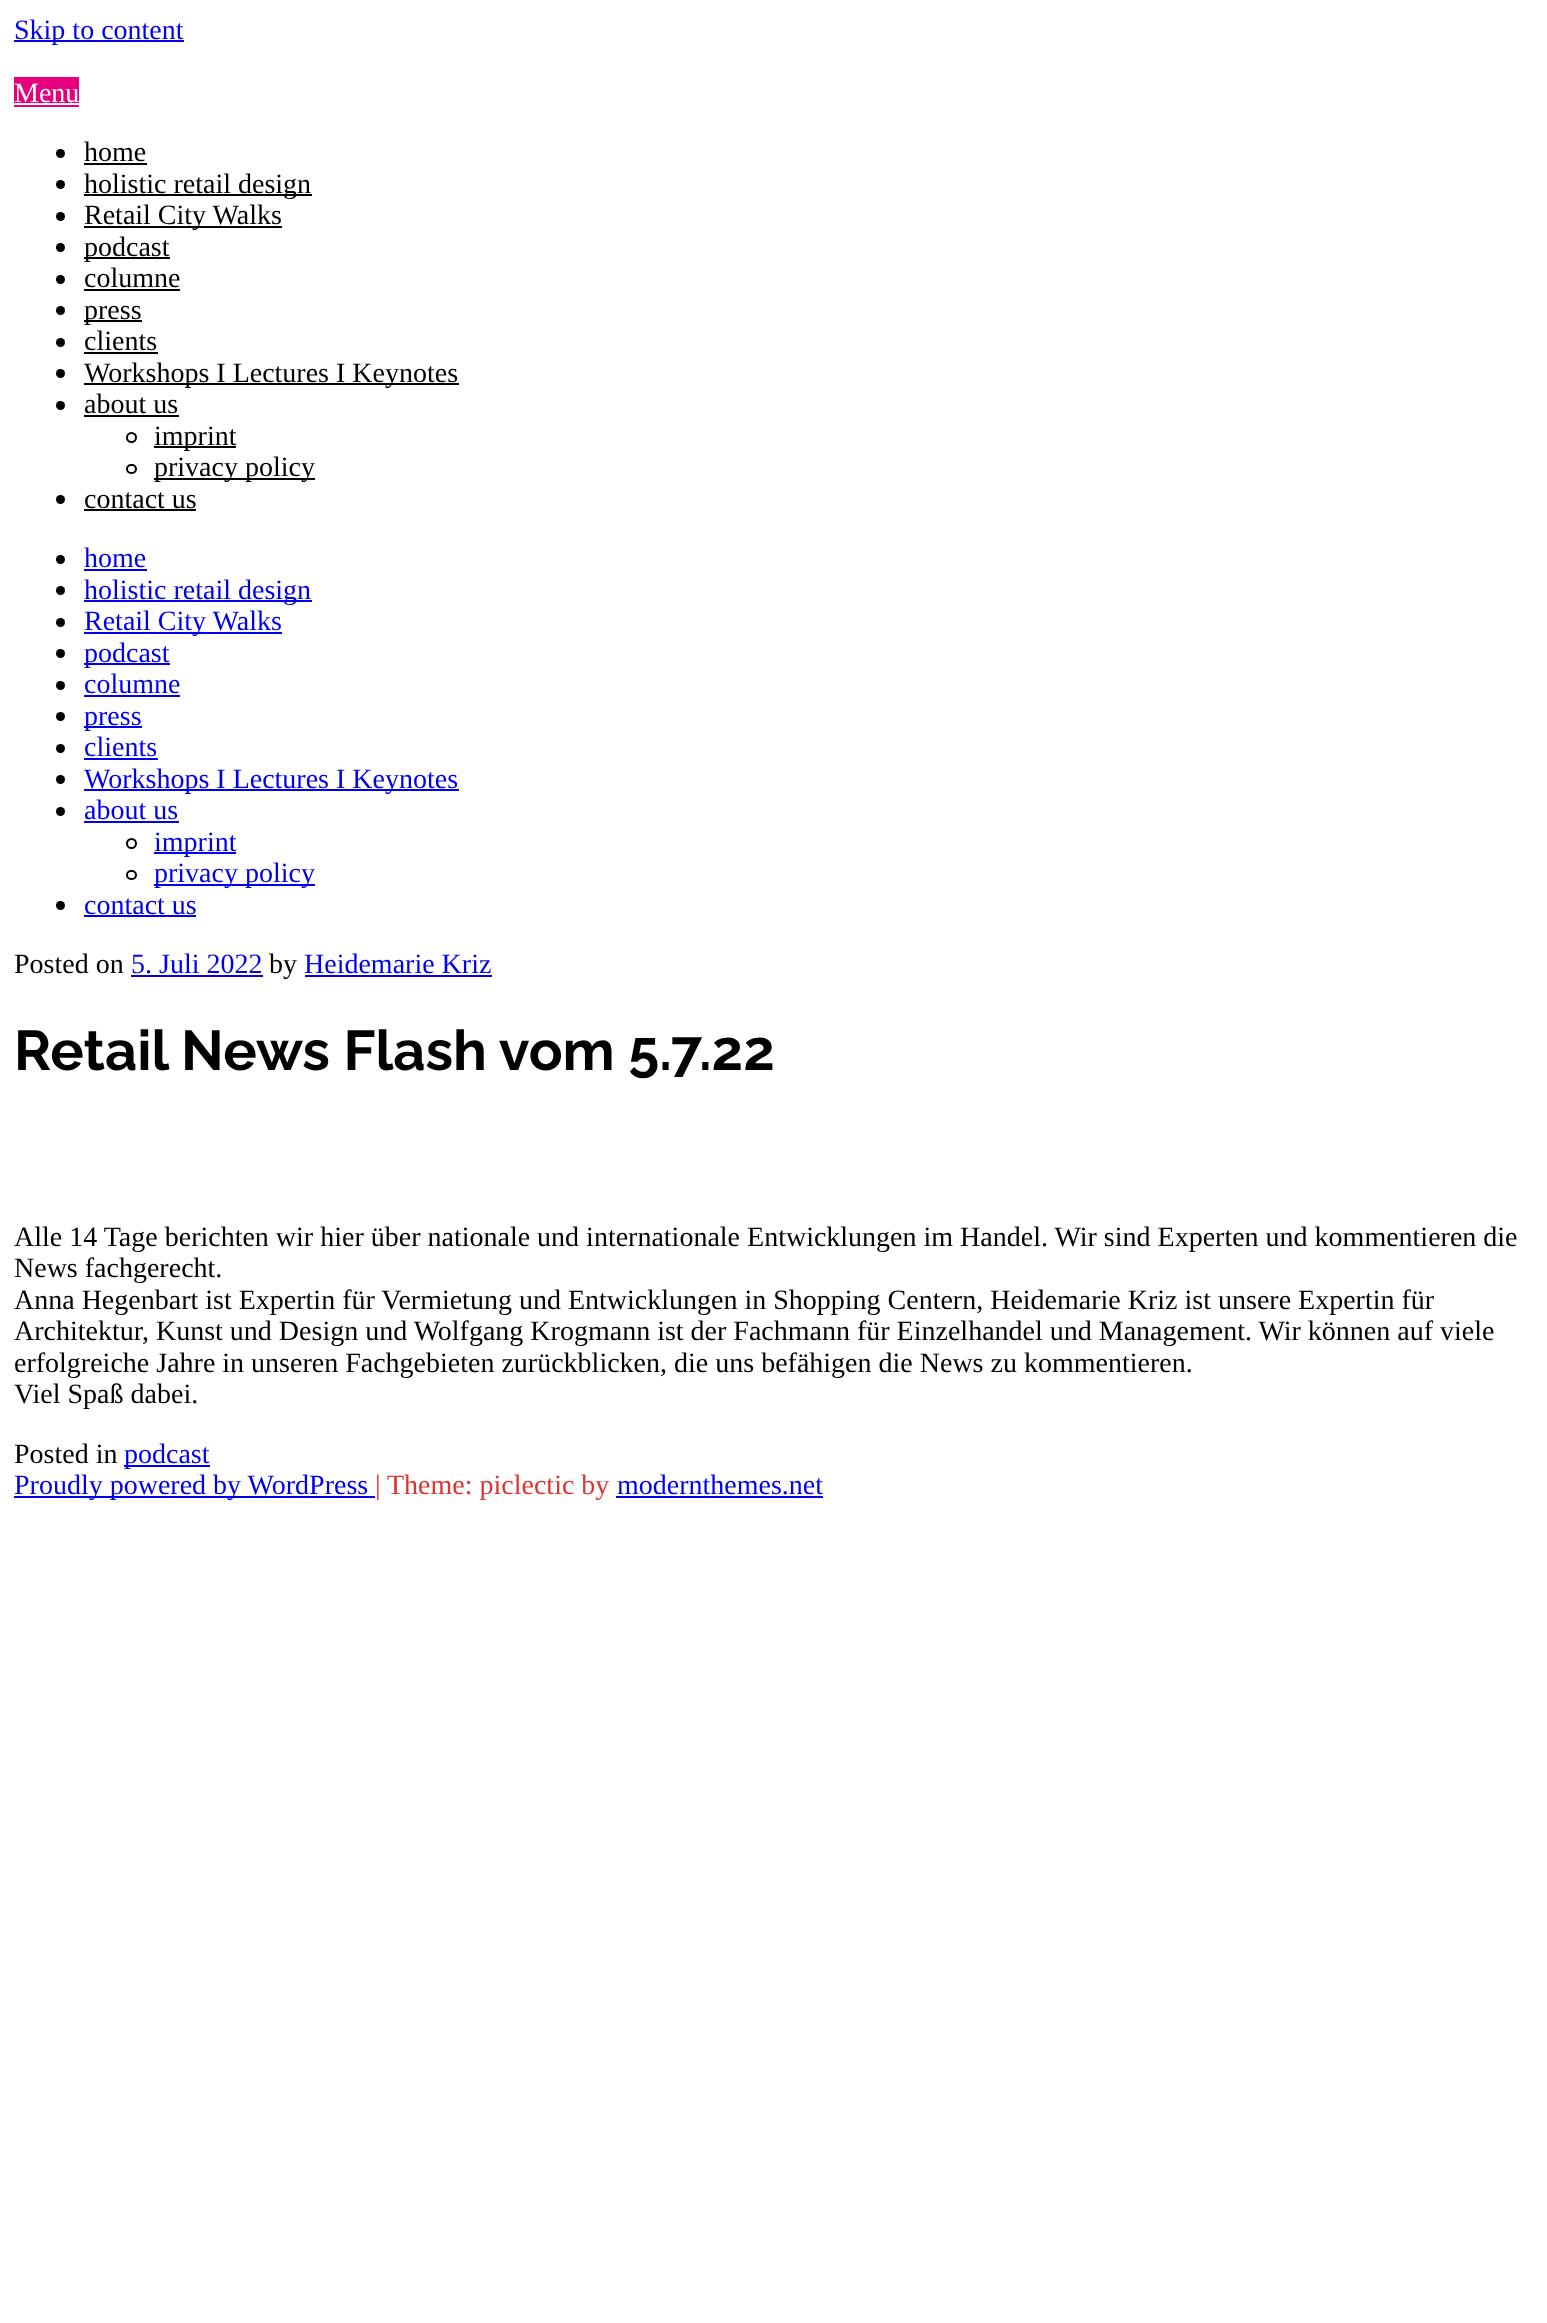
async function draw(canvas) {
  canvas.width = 1547;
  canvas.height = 2323;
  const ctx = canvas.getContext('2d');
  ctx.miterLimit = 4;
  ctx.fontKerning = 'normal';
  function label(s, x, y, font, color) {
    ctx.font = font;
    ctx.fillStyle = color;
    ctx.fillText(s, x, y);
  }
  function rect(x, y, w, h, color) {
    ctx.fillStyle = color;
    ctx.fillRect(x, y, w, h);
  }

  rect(0, 0, 1547, 2323, '#fff');
  rect(14, 40, 170, 2, '#00e');
  label('Skip to content', 14, 39, '28px Liberation Serif', '#00e');
  rect(14, 77, 65, 30, '#e6007e');
  label('Menu', 14, 102, '28px Liberation Serif', '#fff');
  rect(14, 103, 65, 2, '#fff');
  ctx.fillStyle = '#000';
  ctx.beginPath();
  ctx.arc(60.5, 153.5, 4.5, 0, 2 * Math.PI);
  ctx.fill();
  label('home', 84, 161, '28px Liberation Serif', '#000');
  rect(84, 163, 63, 2, '#000');
  ctx.beginPath();
  ctx.arc(60.5, 184.5, 4.5, 0, 2 * Math.PI);
  ctx.fill();
  rect(84, 194, 228, 2, '#000');
  label('holistic retail design', 84, 193, '28px Liberation Serif', '#000');
  ctx.beginPath();
  ctx.arc(60.5, 216.5, 4.5, 0, 2 * Math.PI);
  ctx.fill();
  rect(84, 226, 198, 2, '#000');
  label('Retail City Walks', 84, 224, '28px Liberation Serif', '#000');
  ctx.beginPath();
  ctx.arc(60.5, 247.5, 4.5, 0, 2 * Math.PI);
  ctx.fill();
  rect(84, 257, 86, 2, '#000');
  label('podcast', 84, 256, '28px Liberation Serif', '#000');
  ctx.beginPath();
  ctx.arc(60.5, 279.5, 4.5, 0, 2 * Math.PI);
  ctx.fill();
  label('columne', 84, 287, '28px Liberation Serif', '#000');
  rect(84, 289, 96, 2, '#000');
  ctx.beginPath();
  ctx.arc(60.5, 310.5, 4.5, 0, 2 * Math.PI);
  ctx.fill();
  rect(84, 320, 58, 2, '#000');
  label('press', 84, 319, '28px Liberation Serif', '#000');
  ctx.beginPath();
  ctx.arc(60.5, 342.5, 4.5, 0, 2 * Math.PI);
  ctx.fill();
  label('clients', 84, 350, '28px Liberation Serif', '#000');
  rect(84, 352, 74, 2, '#000');
  ctx.beginPath();
  ctx.arc(60.5, 373.5, 4.5, 0, 2 * Math.PI);
  ctx.fill();
  rect(84, 383, 375, 2, '#000');
  label('Workshops I Lectures I Keynotes', 84, 382, '28px Liberation Serif', '#000');
  ctx.beginPath();
  ctx.arc(60.5, 405.5, 4.5, 0, 2 * Math.PI);
  ctx.fill();
  label('about us', 84, 413, '28px Liberation Serif', '#000');
  rect(84, 415, 95, 2, '#000');
  ctx.beginPath();
  ctx.arc(131.5, 437.5, 4.5, 0, 2 * Math.PI);
  ctx.strokeStyle = '#000';
  ctx.lineWidth = 2;
  ctx.stroke();
  rect(154, 446, 82, 2, '#000');
  label('imprint', 154, 445, '28px Liberation Serif', '#000');
  ctx.beginPath();
  ctx.roundRect(127, 465, 9, 8, 4);
  ctx.stroke();
  rect(154, 478, 161, 2, '#000');
  label('privacy policy', 154, 476, '28px Liberation Serif', '#000');
  ctx.beginPath();
  ctx.arc(60.5, 499.5, 4.5, 0, 2 * Math.PI);
  ctx.fill();
  label('contact us', 84, 508, '28px Liberation Serif', '#000');
  rect(84, 509, 112, 2, '#000');
  ctx.beginPath();
  ctx.arc(60.5, 559.5, 4.5, 0, 2 * Math.PI);
  ctx.fill();
  label('home', 84, 567, '28px Liberation Serif', '#00e');
  rect(84, 569, 63, 2, '#00e');
  ctx.fillStyle = '#000';
  ctx.beginPath();
  ctx.arc(60.5, 590.5, 4.5, 0, 2 * Math.PI);
  ctx.fill();
  rect(84, 600, 228, 2, '#00e');
  label('holistic retail design', 84, 599, '28px Liberation Serif', '#00e');
  ctx.fillStyle = '#000';
  ctx.beginPath();
  ctx.arc(60.5, 622.5, 4.5, 0, 2 * Math.PI);
  ctx.fill();
  rect(84, 632, 198, 2, '#00e');
  label('Retail City Walks', 84, 630, '28px Liberation Serif', '#00e');
  ctx.fillStyle = '#000';
  ctx.beginPath();
  ctx.arc(60.5, 653.5, 4.5, 0, 2 * Math.PI);
  ctx.fill();
  rect(84, 663, 86, 2, '#00e');
  label('podcast', 84, 662, '28px Liberation Serif', '#00e');
  ctx.fillStyle = '#000';
  ctx.beginPath();
  ctx.arc(60.5, 685.5, 4.5, 0, 2 * Math.PI);
  ctx.fill();
  label('columne', 84, 693, '28px Liberation Serif', '#00e');
  rect(84, 695, 96, 2, '#00e');
  ctx.fillStyle = '#000';
  ctx.beginPath();
  ctx.arc(60.5, 716.5, 4.5, 0, 2 * Math.PI);
  ctx.fill();
  rect(84, 726, 58, 2, '#00e');
  label('press', 84, 725, '28px Liberation Serif', '#00e');
  ctx.fillStyle = '#000';
  ctx.beginPath();
  ctx.arc(60.5, 748.5, 4.5, 0, 2 * Math.PI);
  ctx.fill();
  label('clients', 84, 756, '28px Liberation Serif', '#00e');
  rect(84, 758, 74, 2, '#00e');
  ctx.fillStyle = '#000';
  ctx.beginPath();
  ctx.arc(60.5, 779.5, 4.5, 0, 2 * Math.PI);
  ctx.fill();
  rect(84, 789, 375, 2, '#00e');
  label('Workshops I Lectures I Keynotes', 84, 788, '28px Liberation Serif', '#00e');
  ctx.fillStyle = '#000';
  ctx.beginPath();
  ctx.arc(60.5, 811.5, 4.5, 0, 2 * Math.PI);
  ctx.fill();
  label('about us', 84, 819, '28px Liberation Serif', '#00e');
  rect(84, 821, 95, 2, '#00e');
  ctx.beginPath();
  ctx.arc(131.5, 843.5, 4.5, 0, 2 * Math.PI);
  ctx.stroke();
  rect(154, 852, 82, 2, '#00e');
  label('imprint', 154, 851, '28px Liberation Serif', '#00e');
  ctx.beginPath();
  ctx.roundRect(127, 871, 9, 8, 4);
  ctx.stroke();
  rect(154, 884, 161, 2, '#00e');
  label('privacy policy', 154, 882, '28px Liberation Serif', '#00e');
  ctx.fillStyle = '#000';
  ctx.beginPath();
  ctx.arc(60.5, 905.5, 4.5, 0, 2 * Math.PI);
  ctx.fill();
  label('contact us', 84, 914, '28px Liberation Serif', '#00e');
  rect(84, 915, 112, 2, '#00e');
  label('Posted on', 14, 973, '28px Liberation Serif', '#000');
  label('5. Juli 2022', 131, 973, '28px Liberation Serif', '#00e');
  rect(131, 975, 132, 2, '#00e');
  label('by', 269, 973, '28px Liberation Serif', '#000');
  label('Heidemarie Kriz', 304, 973, '28px Liberation Serif', '#00e');
  rect(305, 975, 187, 2, '#00e');
  label('Retail News Flash vom 5.7.22', 14, 1070, 'bold 56px Raleway', '#000');
  label('Alle 14 Tage berichten wir hier über nationale und internationale Entwicklungen im Handel. Wir sind Experten und kommentieren die', 14, 1246, '28px Liberation Serif', '#000');
  label('News fachgerecht.', 14, 1277, '28px Liberation Serif', '#000');
  label('Anna Hegenbart ist Expertin für Vermietung und Entwicklungen in Shopping Centern, Heidemarie Kriz ist unsere Expertin für', 14, 1309, '28px Liberation Serif', '#000');
  label('Architektur, Kunst und Design und Wolfgang Krogmann ist der Fachmann für Einzelhandel und Management. Wir können auf viele', 14, 1340, '28px Liberation Serif', '#000');
  label('erfolgreiche Jahre in unseren Fachgebieten zurückblicken, die uns befähigen die News zu kommentieren.', 14, 1372, '28px Liberation Serif', '#000');
  label('Viel Spaß dabei.', 14, 1403, '28px Liberation Serif', '#000');
  label('Posted in', 14, 1463, '28px Liberation Serif', '#000');
  rect(124, 1465, 86, 2, '#00e');
  label('podcast', 124, 1463, '28px Liberation Serif', '#00e');
  rect(14, 1496, 361, 2, '#00e');
  label('Proudly powered by WordPress', 14, 1494, '28px Liberation Serif', '#00e');
  label('|', 375, 1494, '28px Liberation Serif', '#d33');
  label('Theme: piclectic by', 387, 1494, '28px Liberation Serif', '#d33');
  label('modernthemes.net', 617, 1494, '28px Liberation Serif', '#00e');
  rect(616, 1496, 207, 2, '#00e');
}

draw(document.querySelector('canvas'));
